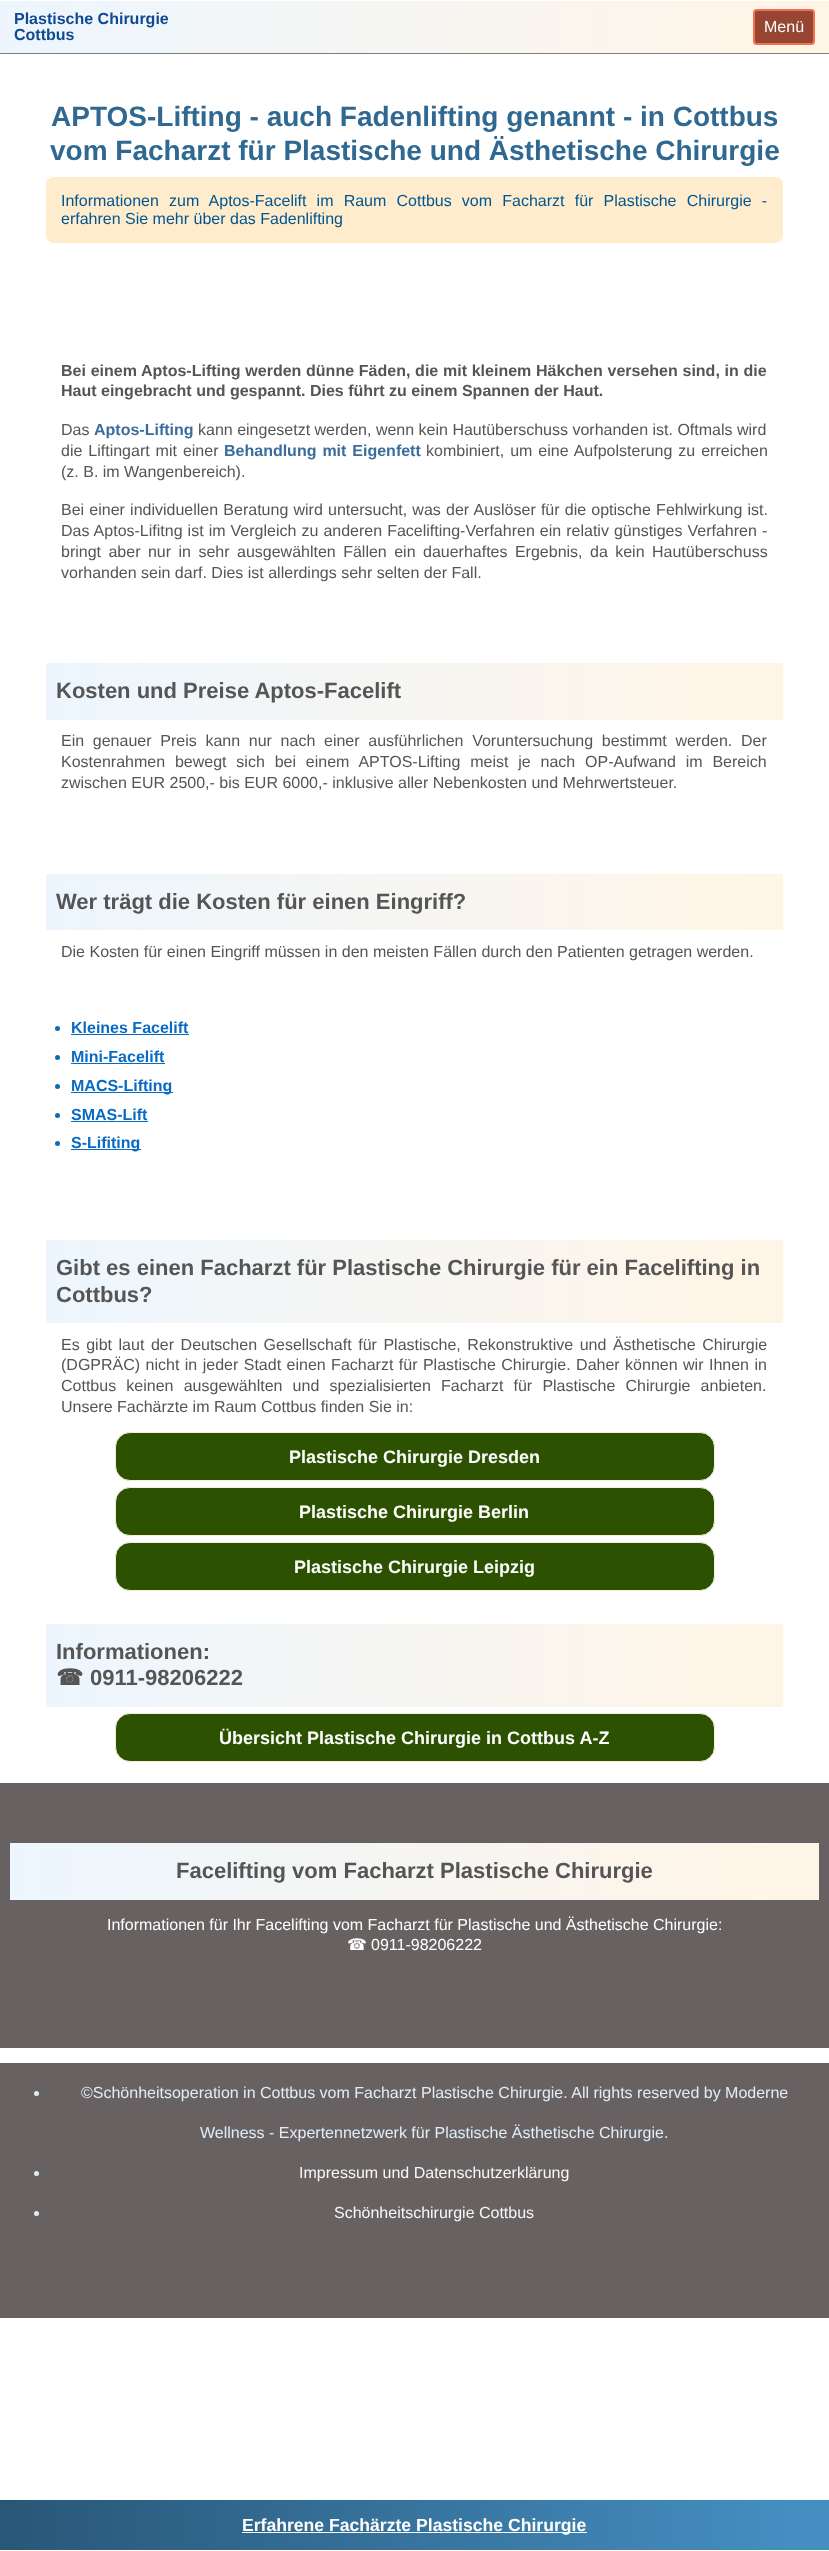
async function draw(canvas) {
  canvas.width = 829;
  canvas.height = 2551;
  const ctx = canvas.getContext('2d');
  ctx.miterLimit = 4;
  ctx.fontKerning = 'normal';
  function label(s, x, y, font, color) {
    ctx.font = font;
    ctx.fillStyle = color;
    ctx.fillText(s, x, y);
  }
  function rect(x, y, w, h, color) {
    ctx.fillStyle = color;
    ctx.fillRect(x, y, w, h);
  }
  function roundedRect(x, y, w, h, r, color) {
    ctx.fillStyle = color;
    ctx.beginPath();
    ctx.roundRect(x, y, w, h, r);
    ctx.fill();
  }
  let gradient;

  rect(0, 0, 829, 2551, '#fff');
  gradient = ctx.createLinearGradient(0, 27, 829, 27);
  gradient.addColorStop(0.01, '#edf6fe');
  gradient.addColorStop(0.95, '#fff5e7');
  ctx.fillStyle = gradient;
  ctx.fillRect(0, 1, 829, 52);
  rect(0, 53, 829, 1, '#7e7e7e');
  label('Plastische Chirurgie', 14, 24, 'bold 16px Liberation Sans', '#0e4a93');
  label('Cottbus', 14, 40, 'bold 16px Liberation Sans', '#0e4a93');
  ctx.fillStyle = '#964633';
  ctx.beginPath();
  ctx.roundRect(754, 10, 60, 34, 3);
  ctx.fill();
  ctx.strokeStyle = '#f27052';
  ctx.lineWidth = 2;
  ctx.stroke();
  label('Menü', 764, 32, '16px Liberation Sans', '#fff');
  label('APTOS-Lifting - auch Fadenlifting genannt - in Cottbus', 51, 126, 'bold 28px Liberation Sans', '#2f6890');
  label('vom Facharzt für Plastische und Ästhetische Chirurgie', 50, 160, 'bold 28px Liberation Sans', '#2f6890');
  roundedRect(46, 177, 737, 66, 8, '#ffeccd');
  ctx.wordSpacing = '5.75px';
  label('Informationen zum Aptos-Facelift im Raum Cottbus vom Facharzt für Plastische Chirurgie -', 61, 206, '16px Liberation Sans', '#00568e');
  ctx.wordSpacing = '0px';
  label('erfahren Sie mehr über das Fadenlifting', 61, 224, '16px Liberation Sans', '#00568e');
  ctx.wordSpacing = '0.3px';
  label('Bei einem Aptos-Lifting werden dünne Fäden, die mit kleinem Häkchen versehen sind, in die', 61, 376, 'bold 16px Liberation Sans', '#555');
  ctx.wordSpacing = '0px';
  label('Haut eingebracht und gespannt. Dies führt zu einem Spannen der Haut.', 61, 396, 'bold 16px Liberation Sans', '#555');
  label('Das', 61, 435, '16px Liberation Sans', '#555');
  label('Aptos-Lifting', 94, 435, 'bold 16px Liberation Sans', '#3a6d9c');
  label('kann eingesetzt werden, wenn kein Hautüberschuss vorhanden ist. Oftmals wird', 198, 435, '16px Liberation Sans', '#555');
  ctx.wordSpacing = '1.5px';
  label('die Liftingart mit einer', 61, 456, '16px Liberation Sans', '#555');
  label('Behandlung mit Eigenfett', 224, 456, 'bold 16px Liberation Sans', '#3a6d9c');
  label('kombiniert, um eine Aufpolsterung zu erreichen', 426, 456, '16px Liberation Sans', '#555');
  ctx.wordSpacing = '0px';
  label('(z. B. im Wangenbereich).', 61, 477, '16px Liberation Sans', '#555');
  ctx.wordSpacing = '0.75px';
  label('Bei einer individuellen Beratung wird untersucht, was der Auslöser für die optische Fehlwirkung ist.', 61, 515, '16px Liberation Sans', '#555');
  ctx.wordSpacing = '0.6px';
  label('Das Aptos-Lifitng ist im Vergleich zu anderen Facelifting-Verfahren ein relativ günstiges Verfahren -', 61, 536, '16px Liberation Sans', '#555');
  ctx.wordSpacing = '3px';
  label('bringt aber nur in sehr ausgewählten Fällen ein dauerhaftes Ergebnis, da kein Hautüberschuss', 61, 557, '16px Liberation Sans', '#555');
  ctx.wordSpacing = '0px';
  label('vorhanden sein darf. Dies ist allerdings sehr selten der Fall.', 61, 578, '16px Liberation Sans', '#555');
  gradient = ctx.createLinearGradient(46, 692, 783, 692);
  gradient.addColorStop(0.01, '#edf6fe');
  gradient.addColorStop(0.95, '#fff5e7');
  ctx.fillStyle = gradient;
  ctx.fillRect(46, 663, 737, 57);
  label('Kosten und Preise Aptos-Facelift', 56, 698, 'bold 22px Liberation Sans', '#555');
  ctx.wordSpacing = '4.25px';
  label('Ein genauer Preis kann nur nach einer ausführlichen Voruntersuchung bestimmt werden. Der', 61, 746, '16px Liberation Sans', '#555');
  ctx.wordSpacing = '5.4px';
  label('Kostenrahmen bewegt sich bei einem APTOS-Lifting meist je nach OP-Aufwand im Bereich', 61, 767, '16px Liberation Sans', '#555');
  ctx.wordSpacing = '0px';
  label('zwischen EUR 2500,- bis EUR 6000,- inklusive aller Nebenkosten und Mehrwertsteuer.', 61, 788, '16px Liberation Sans', '#555');
  gradient = ctx.createLinearGradient(46, 902, 783, 902);
  gradient.addColorStop(0.01, '#edf6fe');
  gradient.addColorStop(0.95, '#fff5e7');
  ctx.fillStyle = gradient;
  ctx.fillRect(46, 874, 737, 56);
  label('Wer trägt die Kosten für einen Eingriff?', 56, 909, 'bold 22px Liberation Sans', '#555');
  label('Die Kosten für einen Eingriff müssen in den meisten Fällen durch den Patienten getragen werden.', 61, 957, '16px Liberation Sans', '#555');
  ctx.fillStyle = '#0d6db1';
  ctx.beginPath();
  ctx.arc(57.5, 1028.5, 2.5, 0, 2 * Math.PI);
  ctx.fill();
  label('Kleines Facelift', 71, 1033, 'bold 16px Liberation Sans', '#096ac4');
  rect(71, 1034, 118, 1, '#096ac4');
  ctx.fillStyle = '#0d6db1';
  ctx.beginPath();
  ctx.arc(57.5, 1057.5, 2.5, 0, 2 * Math.PI);
  ctx.fill();
  label('Mini-Facelift', 71, 1062, 'bold 16px Liberation Sans', '#096ac4');
  rect(71, 1063, 94, 1, '#096ac4');
  ctx.fillStyle = '#0d6db1';
  ctx.beginPath();
  ctx.arc(57.5, 1086.5, 2.5, 0, 2 * Math.PI);
  ctx.fill();
  rect(71, 1092, 102, 1, '#096ac4');
  label('MACS-Lifting', 71, 1091, 'bold 16px Liberation Sans', '#096ac4');
  ctx.fillStyle = '#0d6db1';
  ctx.beginPath();
  ctx.arc(57.5, 1115.5, 2.5, 0, 2 * Math.PI);
  ctx.fill();
  label('SMAS-Lift', 71, 1120, 'bold 16px Liberation Sans', '#096ac4');
  rect(71, 1121, 77, 1, '#096ac4');
  ctx.fillStyle = '#0d6db1';
  ctx.beginPath();
  ctx.arc(57.5, 1143.5, 2.5, 0, 2 * Math.PI);
  ctx.fill();
  rect(71, 1149, 70, 1, '#096ac4');
  label('S-Lifiting', 71, 1148, 'bold 16px Liberation Sans', '#096ac4');
  gradient = ctx.createLinearGradient(46, 1282, 783, 1282);
  gradient.addColorStop(0.01, '#edf6fe');
  gradient.addColorStop(0.95, '#fff5e7');
  ctx.fillStyle = gradient;
  ctx.fillRect(46, 1240, 737, 83);
  label('Gibt es einen Facharzt für Plastische Chirurgie für ein Facelifting in', 56, 1275, 'bold 22px Liberation Sans', '#555');
  label('Cottbus?', 56, 1302, 'bold 22px Liberation Sans', '#555');
  ctx.wordSpacing = '2.1px';
  label('Es gibt laut der Deutschen Gesellschaft für Plastische, Rekonstruktive und Ästhetische Chirurgie', 61, 1350, '16px Liberation Sans', '#555');
  ctx.wordSpacing = '1px';
  label('(DGPRÄC) nicht in jeder Stadt einen Facharzt für Plastische Chirurgie. Daher können wir Ihnen in', 61, 1370, '16px Liberation Sans', '#555');
  ctx.wordSpacing = '5.75px';
  label('Cottbus keinen ausgewählten und spezialisierten Facharzt für Plastische Chirurgie anbieten.', 61, 1391, '16px Liberation Sans', '#555');
  ctx.wordSpacing = '0px';
  label('Unsere Fachärzte im Raum Cottbus finden Sie in:', 61, 1412, '16px Liberation Sans', '#555');
  ctx.fillStyle = '#2b5101';
  ctx.beginPath();
  ctx.roundRect(115.5, 1432.5, 599, 48, 14.5);
  ctx.fill();
  ctx.strokeStyle = '#f4efd9';
  ctx.lineWidth = 1;
  ctx.stroke();
  label('Plastische Chirurgie Dresden', 289, 1463, 'bold 18px Liberation Sans', '#fff');
  ctx.fillStyle = '#2b5101';
  ctx.beginPath();
  ctx.roundRect(115.5, 1487.5, 599, 48, 14.5);
  ctx.fill();
  ctx.stroke();
  label('Plastische Chirurgie Berlin', 299, 1518, 'bold 18px Liberation Sans', '#fff');
  ctx.fillStyle = '#2b5101';
  ctx.beginPath();
  ctx.roundRect(115.5, 1542.5, 599, 48, 14.5);
  ctx.fill();
  ctx.stroke();
  label('Plastische Chirurgie Leipzig', 294, 1573, 'bold 18px Liberation Sans', '#fff');
  gradient = ctx.createLinearGradient(46, 1666, 783, 1666);
  gradient.addColorStop(0.01, '#edf6fe');
  gradient.addColorStop(0.95, '#fff5e7');
  ctx.fillStyle = gradient;
  ctx.fillRect(46, 1624, 737, 83);
  label('Informationen:', 56, 1659, 'bold 22px Liberation Sans', '#555');
  label('☎', 56, 1685, 'bold 22px DejaVu Sans', '#555');
  label('0911-98206222', 90, 1685, 'bold 22px Liberation Sans', '#555');
  ctx.fillStyle = '#2b5101';
  ctx.beginPath();
  ctx.roundRect(115.5, 1713.5, 599, 48, 14.5);
  ctx.fill();
  ctx.stroke();
  label('Übersicht Plastische Chirurgie in Cottbus A-Z', 219, 1744, 'bold 18px Liberation Sans', '#fff');
  rect(0, 1783, 829, 265, '#686161');
  gradient = ctx.createLinearGradient(10, 1872, 819, 1872);
  gradient.addColorStop(0.01, '#edf6fe');
  gradient.addColorStop(0.95, '#fff5e7');
  ctx.fillStyle = gradient;
  ctx.fillRect(10, 1843, 809, 57);
  label('Facelifting vom Facharzt Plastische Chirurgie', 176, 1878, 'bold 22px Liberation Sans', '#555');
  label('Informationen für Ihr Facelifting vom Facharzt für Plastische und Ästhetische Chirurgie:', 107, 1930, '16px Liberation Sans', '#fff');
  label('☎', 347, 1950, '16px DejaVu Sans', '#fff');
  label('0911-98206222', 371, 1950, '16px Liberation Sans', '#fff');
  rect(0, 2063, 829, 255, '#686161');
  ctx.fillStyle = '#e0edf8';
  ctx.beginPath();
  ctx.arc(36.5, 2093.5, 2.5, 0, 2 * Math.PI);
  ctx.fill();
  label('©Schönheitsoperation in Cottbus vom Facharzt Plastische Chirurgie. All rights reserved by Moderne', 81, 2098, '16px Liberation Sans', '#e0edf8');
  label('Wellness - Expertennetzwerk für Plastische Ästhetische Chirurgie.', 200, 2138, '16px Liberation Sans', '#e0edf8');
  ctx.beginPath();
  ctx.arc(36.5, 2173.5, 2.5, 0, 2 * Math.PI);
  ctx.fill();
  label('Impressum und Datenschutzerklärung', 299, 2178, '16px Liberation Sans', '#f7f7f7');
  ctx.fillStyle = '#e0edf8';
  ctx.beginPath();
  ctx.arc(36.5, 2213.5, 2.5, 0, 2 * Math.PI);
  ctx.fill();
  label('Schönheitschirurgie Cottbus', 334, 2218, '16px Liberation Sans', '#f7f7f7');
  gradient = ctx.createLinearGradient(0, 2525, 829, 2525);
  gradient.addColorStop(0.01, '#295778');
  gradient.addColorStop(0.95, '#448ec1');
  ctx.fillStyle = gradient;
  ctx.fillRect(0, 2500, 829, 50);
  rect(242, 2532, 345, 1, '#fff');
  label('Erfahrene Fachärzte Plastische Chirurgie', 242, 2531, 'bold 17.6px Liberation Sans', '#fff');
}

draw(document.querySelector('canvas'));
